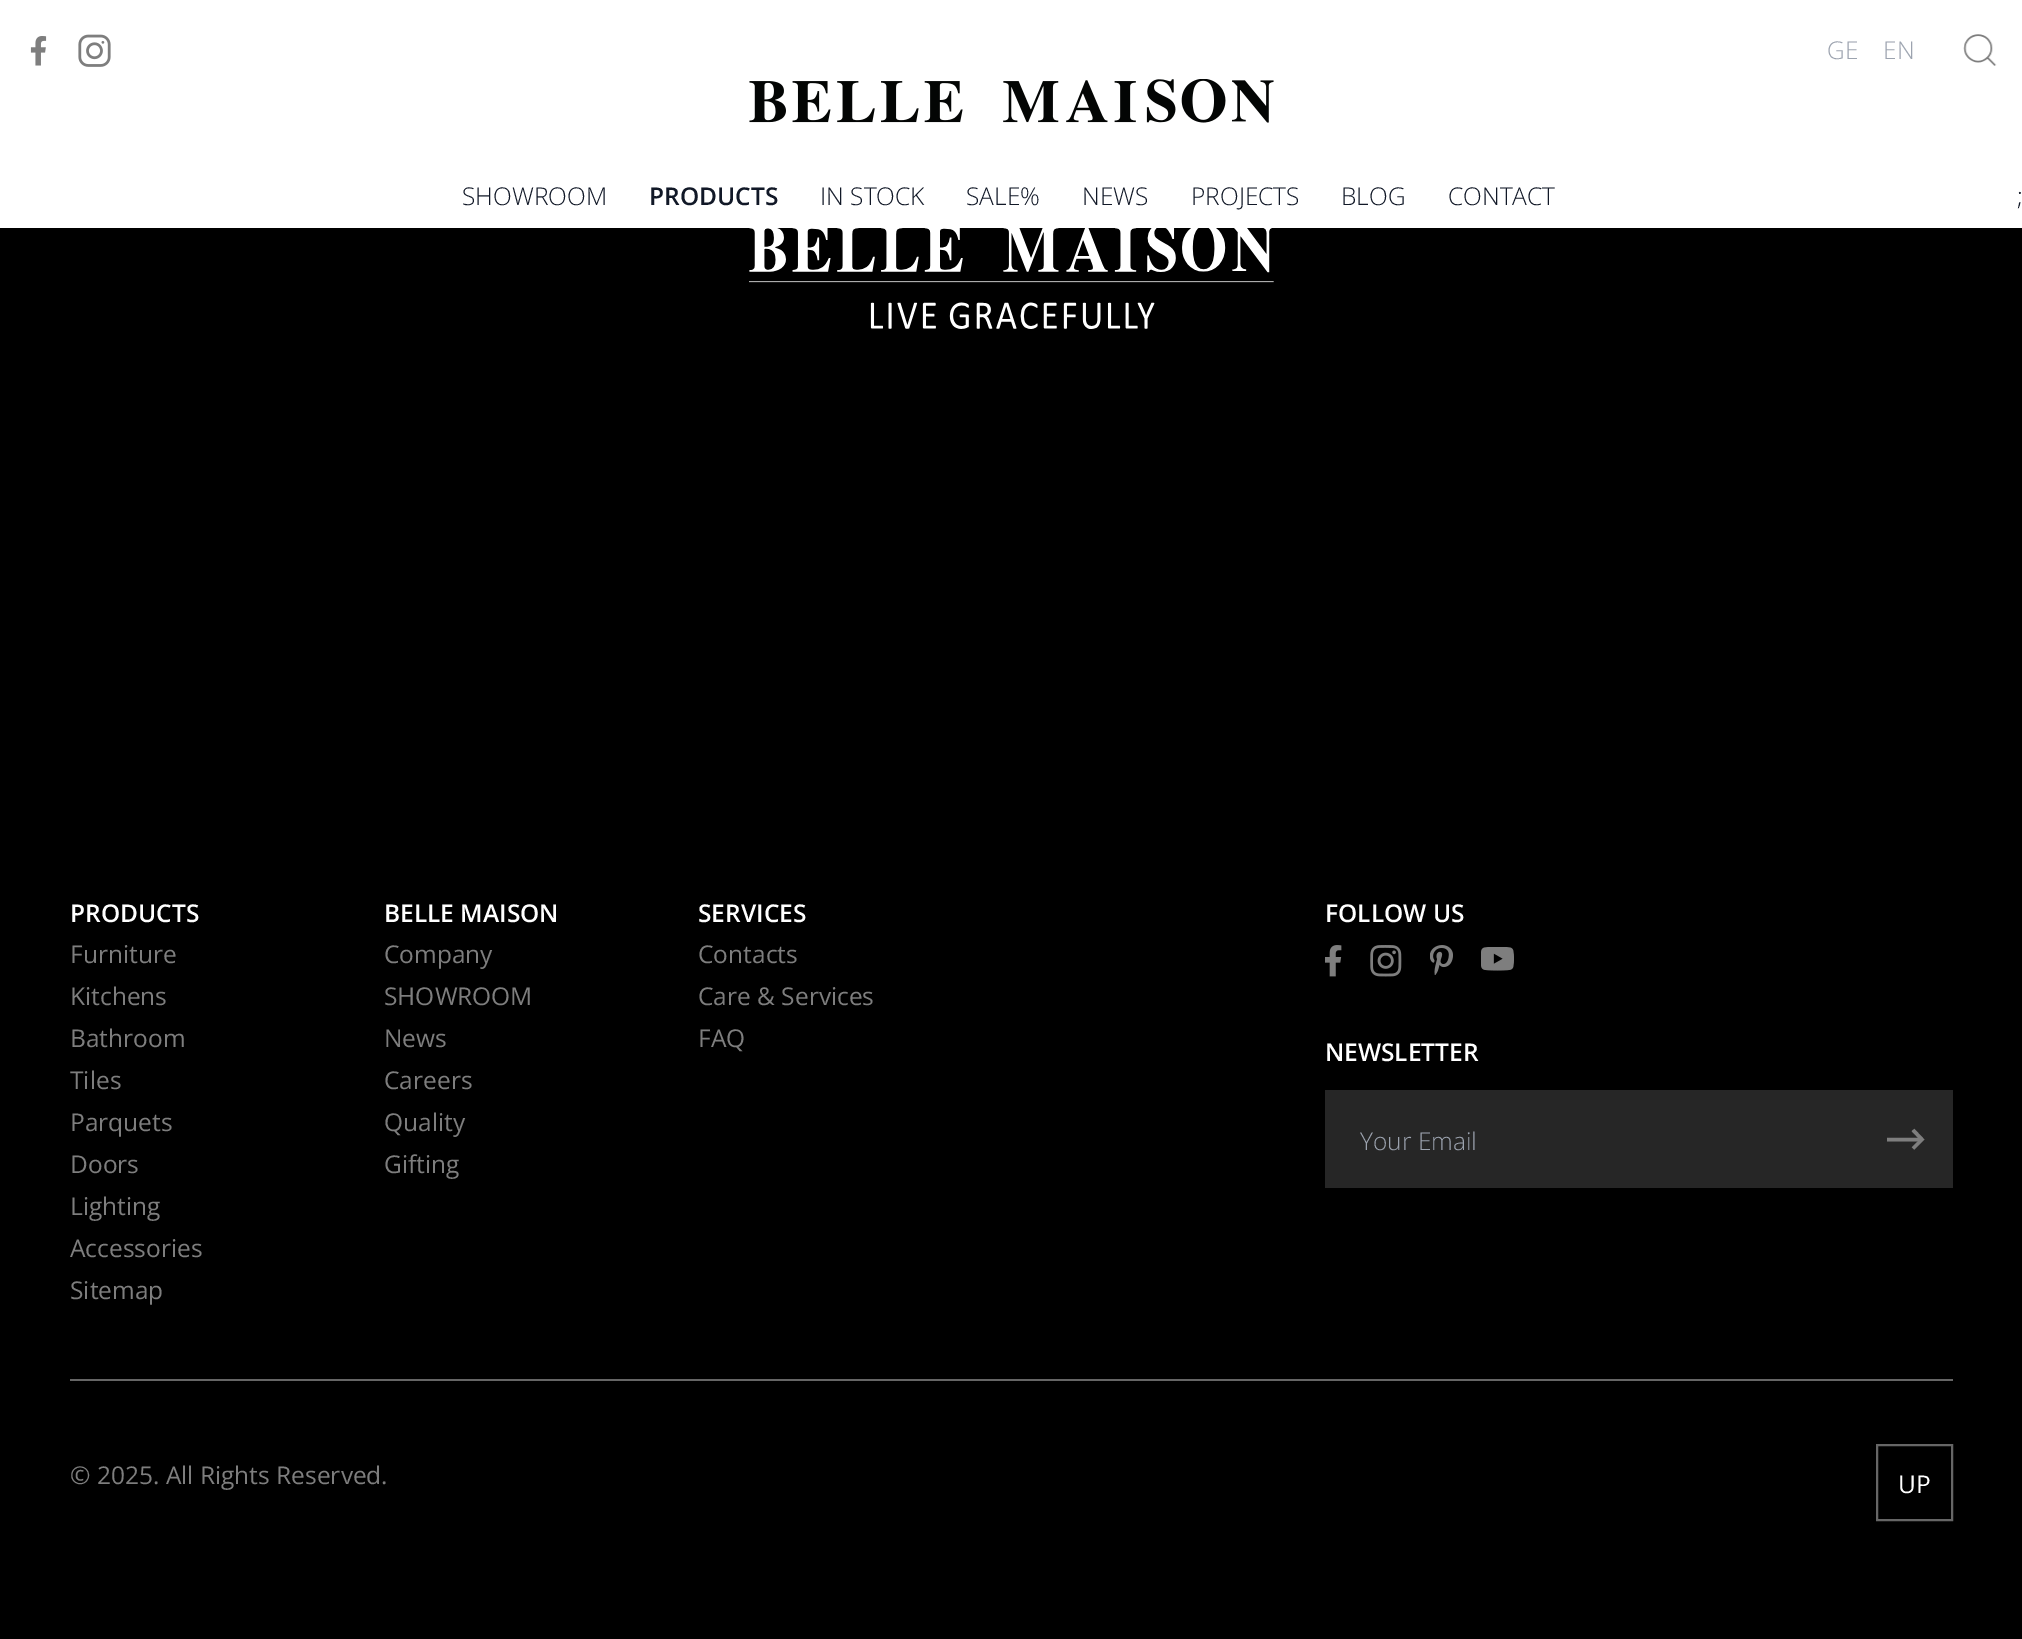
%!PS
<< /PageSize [2022 1639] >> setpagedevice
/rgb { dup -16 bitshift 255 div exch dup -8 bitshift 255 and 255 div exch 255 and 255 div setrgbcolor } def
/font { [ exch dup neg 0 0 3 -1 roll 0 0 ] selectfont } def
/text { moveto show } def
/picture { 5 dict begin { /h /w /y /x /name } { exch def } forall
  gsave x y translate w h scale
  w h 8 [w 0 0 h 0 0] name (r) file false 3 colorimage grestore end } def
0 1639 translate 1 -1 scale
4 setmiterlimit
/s1 { /OpenSans-Light 24.5 font 16#9CA3AF rgb } def
/s2 { /OpenSans-Light 24.5 font 16#111827 rgb } def
/s3 { /OpenSans-SemiBold 24.5 font 16#111827 rgb } def
/s4 { /OpenSans-SemiBold 24.5 font 16#FFFFFF rgb } def
/s5 { /OpenSans-Regular 24.5 font 16#7E7E7E rgb } def
/s6 { /OpenSans-Regular 24.5 font 16#FFFFFF rgb } def
16#000000 rgb
0 0 2022 1639 rectfill
16#FFFFFF rgb
0 0 2022 228 rectfill
(pic1.raw) 30 36 17 30 picture
(pic2.raw) 78 34 33 33 picture
s1
(GE) 1827 59 text
(EN) 1883 59 text
(pic3.raw) 1963 34 34 32 picture
(pic4.raw) 749 79 525 44 picture
s2
(SHOWROOM) 462 205 text
s3
(PRODUCTS) 649 205 text
s2
(IN STOCK) 820 205 text
(SALE%) 966 205 text
(NEWS) 1082 205 text
(PROJECTS) 1191 205 text
(BLOG) 1341 205 text
(CONTACT) 1448 205 text
(;) 2017 205 text
(pic5.raw) 749 228 525 101 picture
s4
(PRODUCTS) 70 922 text
s5
(Furniture) 70 963 text
(Kitchens) 70 1005 text
(Bathroom) 70 1047 text
(Tiles) 70 1089 text
(Parquets) 70 1131 text
(Doors) 70 1173 text
(Lighting) 70 1215 text
(Accessories) 70 1257 text
(Sitemap) 70 1299 text
s4
(BELLE MAISON) 384 922 text
s5
(Company) 384 963 text
(SHOWROOM) 384 1005 text
(News) 384 1047 text
(Careers) 384 1089 text
(Quality) 384 1131 text
(Gifting) 384 1173 text
s4
(SERVICES) 698 922 text
s5
(Contacts) 698 963 text
(Care & Services) 698 1005 text
(FAQ) 698 1047 text
s4
(FOLLOW US) 1325 922 text
(pic6.raw) 1325 945 17 32 picture
(pic7.raw) 1370 945 32 32 picture
(pic8.raw) 1430 945 23 30 picture
(pic9.raw) 1481 947 33 24 picture
(NEWSLETTER) 1325 1061 text
16#262626 rgb
1325 1090 628 98 rectfill
s1
(Your Email) 1360 1150 text
gsave
1887 1129 38 21 rectclip
16#7E7E7E rgb
3.5 setlinewidth
1886.5 1139.5 moveto 1920.5 1139.5 lineto stroke
grestore
16#7E7E7E rgb
3.5 setlinewidth
1913 1130 moveto 1922 1139.5 lineto 1913 1148.5 lineto stroke
16#666666 rgb
70 1379 1883 2 rectfill
s5
(© 2025. All Rights Reserved.) 70 1484 text
16#666666 rgb
2 setlinewidth
1877 1445 75 75 rectstroke
s6
(UP) 1898 1493 text
showpage
